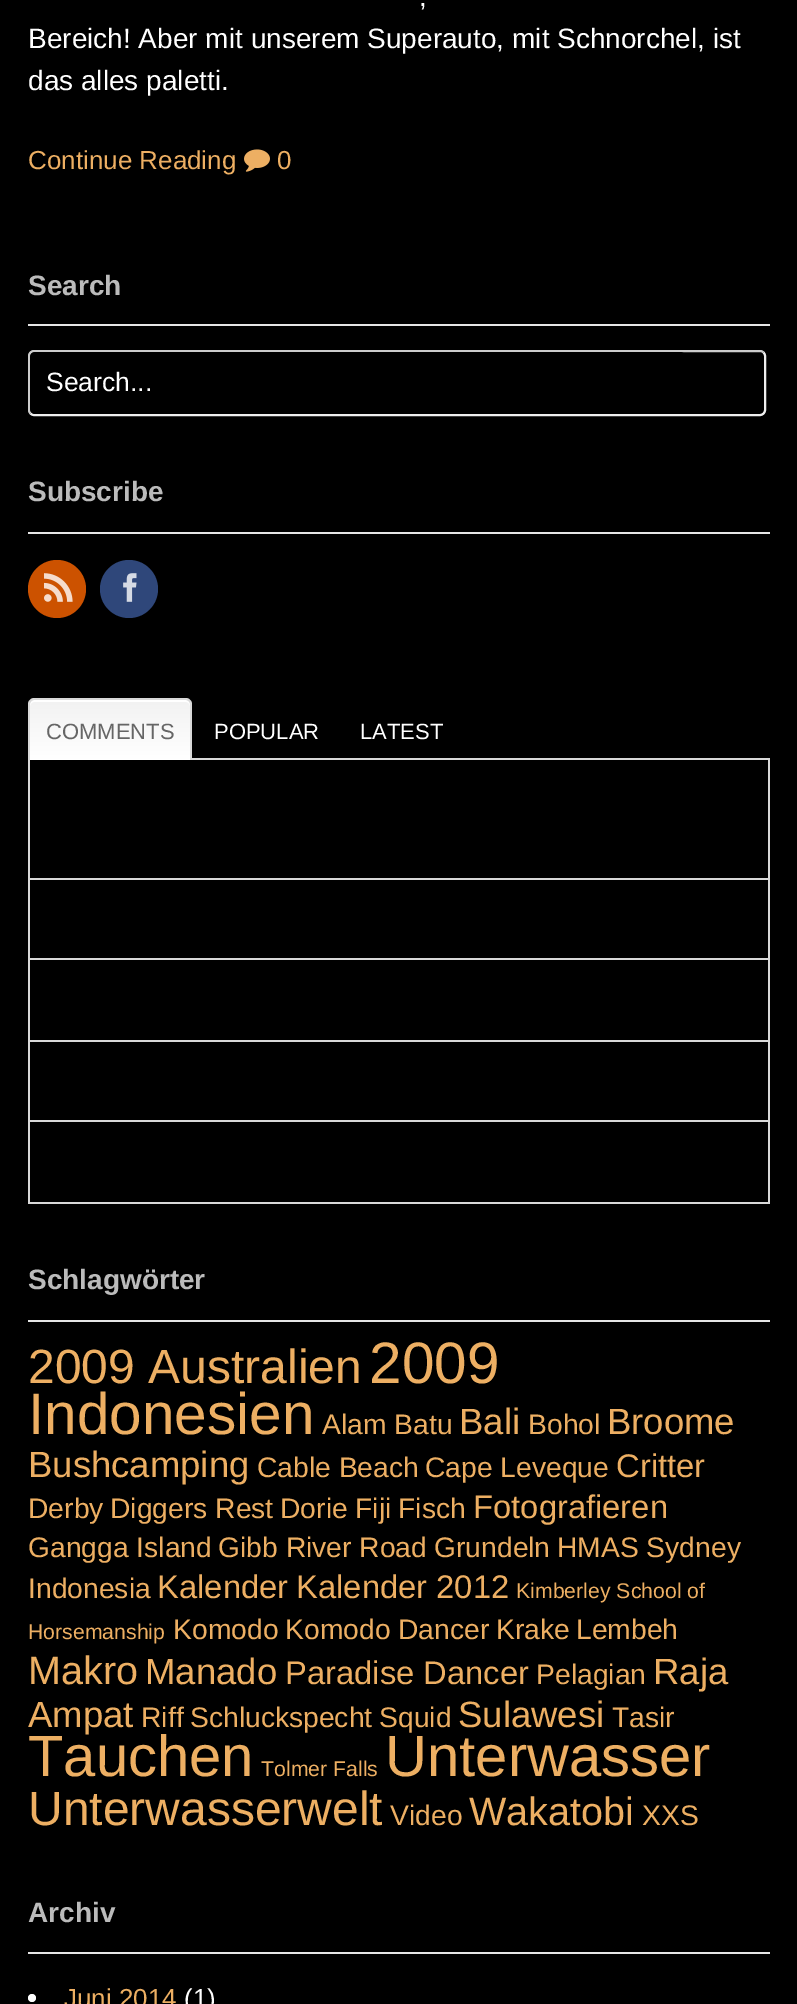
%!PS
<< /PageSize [797 2004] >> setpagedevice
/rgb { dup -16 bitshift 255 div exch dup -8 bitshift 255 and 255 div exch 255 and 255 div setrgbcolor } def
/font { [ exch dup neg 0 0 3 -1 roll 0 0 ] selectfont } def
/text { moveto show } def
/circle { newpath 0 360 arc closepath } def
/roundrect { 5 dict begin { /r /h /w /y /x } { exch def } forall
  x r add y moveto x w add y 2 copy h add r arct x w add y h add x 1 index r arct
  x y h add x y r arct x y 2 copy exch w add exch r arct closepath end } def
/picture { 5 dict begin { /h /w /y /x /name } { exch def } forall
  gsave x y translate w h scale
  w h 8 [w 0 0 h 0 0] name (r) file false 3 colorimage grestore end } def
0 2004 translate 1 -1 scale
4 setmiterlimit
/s1 { /LiberationSans-Regular 28 font 16#FFFFFF rgb } def
/s2 { /LiberationSans-Regular 26 font 16#EDAF63 rgb } def
/s3 { /LiberationSans-Bold 28 font 16#BBBBBB rgb } def
/s4 { /LiberationSans-Regular 26.5 font 16#FFFFFF rgb } def
/s5 { /LiberationSans-Regular 22 font 16#666666 rgb } def
/s6 { /LiberationSans-Regular 22 font 16#FFFFFF rgb } def
/s7 { /LiberationSans-Regular 48 font 16#EDAF63 rgb } def
/s8 { /LiberationSans-Regular 58.5 font 16#EDAF63 rgb } def
/s9 { /LiberationSans-Regular 28.25 font 16#EDAF63 rgb } def
/s10 { /LiberationSans-Regular 36.5 font 16#EDAF63 rgb } def
/s11 { /LiberationSans-Regular 32.75 font 16#EDAF63 rgb } def
/s12 { /LiberationSans-Regular 21.25 font 16#EDAF63 rgb } def
/s13 { /LiberationSans-Regular 39.5 font 16#EDAF63 rgb } def
/s14 { /LiberationSans-Regular 58 font 16#EDAF63 rgb } def
/s15 { /LiberationSans-Regular 26 font 16#FFFFFF rgb } def
16#000000 rgb
0 0 797 2004 rectfill
s1
(,) 419 6 text
(Bereich! Aber mit unserem Superauto, mit Schnorchel, ist) 28 48 text
(das alles paletti.) 28 90 text
s2
(Continue Reading) 28 169 text
(pic1.raw) 244 149 26 23 picture
(0) 277 169 text
16#E6E6E6 rgb
28 324 742 2 rectfill
s3
(Search) 28 295 text
16#EFEFEF rgb
2 setlinewidth
763.5 352.5 moveto 764.5 353.5 765 354.5 765 356 curveto 765 410 lineto 765 411.5 764.5 412.5 763.5 413.5 curveto 762.5 414.5 761.5 415 760 415 curveto 34 415 lineto 32.5 415 31.5 414.5 30.5 413.5 curveto stroke
16#CCCCCC rgb
30.5 413.5 moveto 29.5 412.5 29 411.5 29 410 curveto 29 356 lineto 29 354.5 29.5 353.5 30.5 352.5 curveto 31.5 351.5 32.5 351 34 351 curveto 760 351 lineto 761.5 351 762.5 351.5 763.5 352.5 curveto stroke
16#000000 rgb
30 352 656 62 6 roundrect fill
s4
(Search...) 46 391 text
16#E6E6E6 rgb
28 532 742 2 rectfill
s3
(Subscribe) 28 501 text
16#CC5200 rgb
57 589 29 circle fill
(pic2.raw) 44 573 29 29 picture
16#2F477A rgb
129 589 29 circle fill
(pic3.raw) 123 573 14 29 picture
gsave 34 700 moveto 186 700 lineto 188 700 190 702 190 704 curveto 190 760 lineto 30 760 lineto 30 704 lineto 30 702 32 700 34 700 curveto closepath clip newpath
<< /ShadingType 2 /ColorSpace /DeviceRGB /Coords [110 700 110 760] /Extend [true true] /Function << /FunctionType 2 /Domain [0 1] /C0 [0.949 0.949 0.949] /C1 [1 1 1] /N 1 >> >> shfill grestore
16#FFFFFF rgb
34 702 moveto 186 702 lineto 188 702 190 704 190 706 curveto 190 704 lineto 190 702 188 700 186 700 curveto 34 700 lineto 32 700 30 702 30 704 curveto 30 706 lineto 30 704 32 702 34 702 curveto closepath fill
16#D9D9D9 rgb
34 698 moveto 186 698 lineto 189 698 192 701 192 704 curveto 192 760 lineto 28 760 lineto 28 704 lineto 28 701 31 698 34 698 curveto closepath 34 700 moveto 186 700 lineto 188 700 190 702 190 704 curveto 190 760 lineto 30 760 lineto 30 704 lineto 30 702 32 700 34 700 curveto closepath eofill
s5
(COMMENTS) 46 739 text
s6
(POPULAR) 214 739 text
(LATEST) 360 739 text
16#D9D9D9 rgb
192 758 578 2 rectfill
28 1202 742 2 rectfill
768 760 2 442 rectfill
28 878 742 2 rectfill
28 760 2 120 rectfill
28 958 742 2 rectfill
28 880 2 80 rectfill
28 1040 742 2 rectfill
28 960 2 82 rectfill
28 1120 742 2 rectfill
28 1042 2 160 rectfill
16#E6E6E6 rgb
28 1320 742 2 rectfill
s3
(Schlagwörter) 28 1289 text
s7
(2009 Australien) 28 1383 text
s8
(2009) 369 1383 text
(Indonesien) 28 1434 text
s9
(Alam Batu) 322 1434 text
s10
(Bali) 459 1434 text
s9
(Bohol) 528 1434 text
s10
(Broome) 607 1434 text
(Bushcamping) 28 1477 text
s9
(Cable Beach) 257 1477 text
(Cape Leveque) 425 1477 text
s11
(Critter) 616 1477 text
s9
(Derby) 28 1518 text
(Diggers Rest) 110 1518 text
(Dorie) 280 1518 text
(Fiji) 355 1518 text
(Fisch) 398 1518 text
s11
(Fotografieren) 473 1518 text
s9
(Gangga Island) 28 1557 text
(Gibb River Road) 218 1557 text
(Grundeln) 434 1557 text
(HMAS Sydney) 557 1557 text
(Indonesia) 28 1598 text
s11
(Kalender) 157 1598 text
(Kalender 2012) 296 1598 text
s12
(Kimberley School of) 516 1598 text
(Horsemanship) 28 1639 text
s9
(Komodo) 173 1639 text
(Komodo Dancer) 285 1639 text
(Krake) 496 1639 text
(Lembeh) 576 1639 text
s13
(Makro) 28 1684 text
s10
(Manado) 145 1684 text
s11
(Paradise Dancer) 285 1684 text
s9
(Pelagian) 536 1684 text
s10
(Raja) 653 1684 text
(Ampat) 28 1727 text
s9
(Riff) 141 1727 text
(Schluckspecht) 190 1727 text
(Squid) 379 1727 text
s10
(Sulawesi) 458 1727 text
s9
(Tasir) 612 1727 text
s14
(Tauchen) 28 1776 text
s12
(Tolmer Falls) 261 1776 text
s14
(Unterwasser) 385 1776 text
s7
(Unterwasserwelt) 28 1825 text
s9
(Video) 390 1825 text
s13
(Wakatobi) 469 1825 text
s9
(XXS) 642 1825 text
16#E6E6E6 rgb
28 1952 742 2 rectfill
s3
(Archiv) 28 1922 text
16#FFFFFF rgb
32 1998 4 circle fill
s2
(Juni 2014) 64 2007 text
s15
(\(1\)) 184 2007 text
showpage
